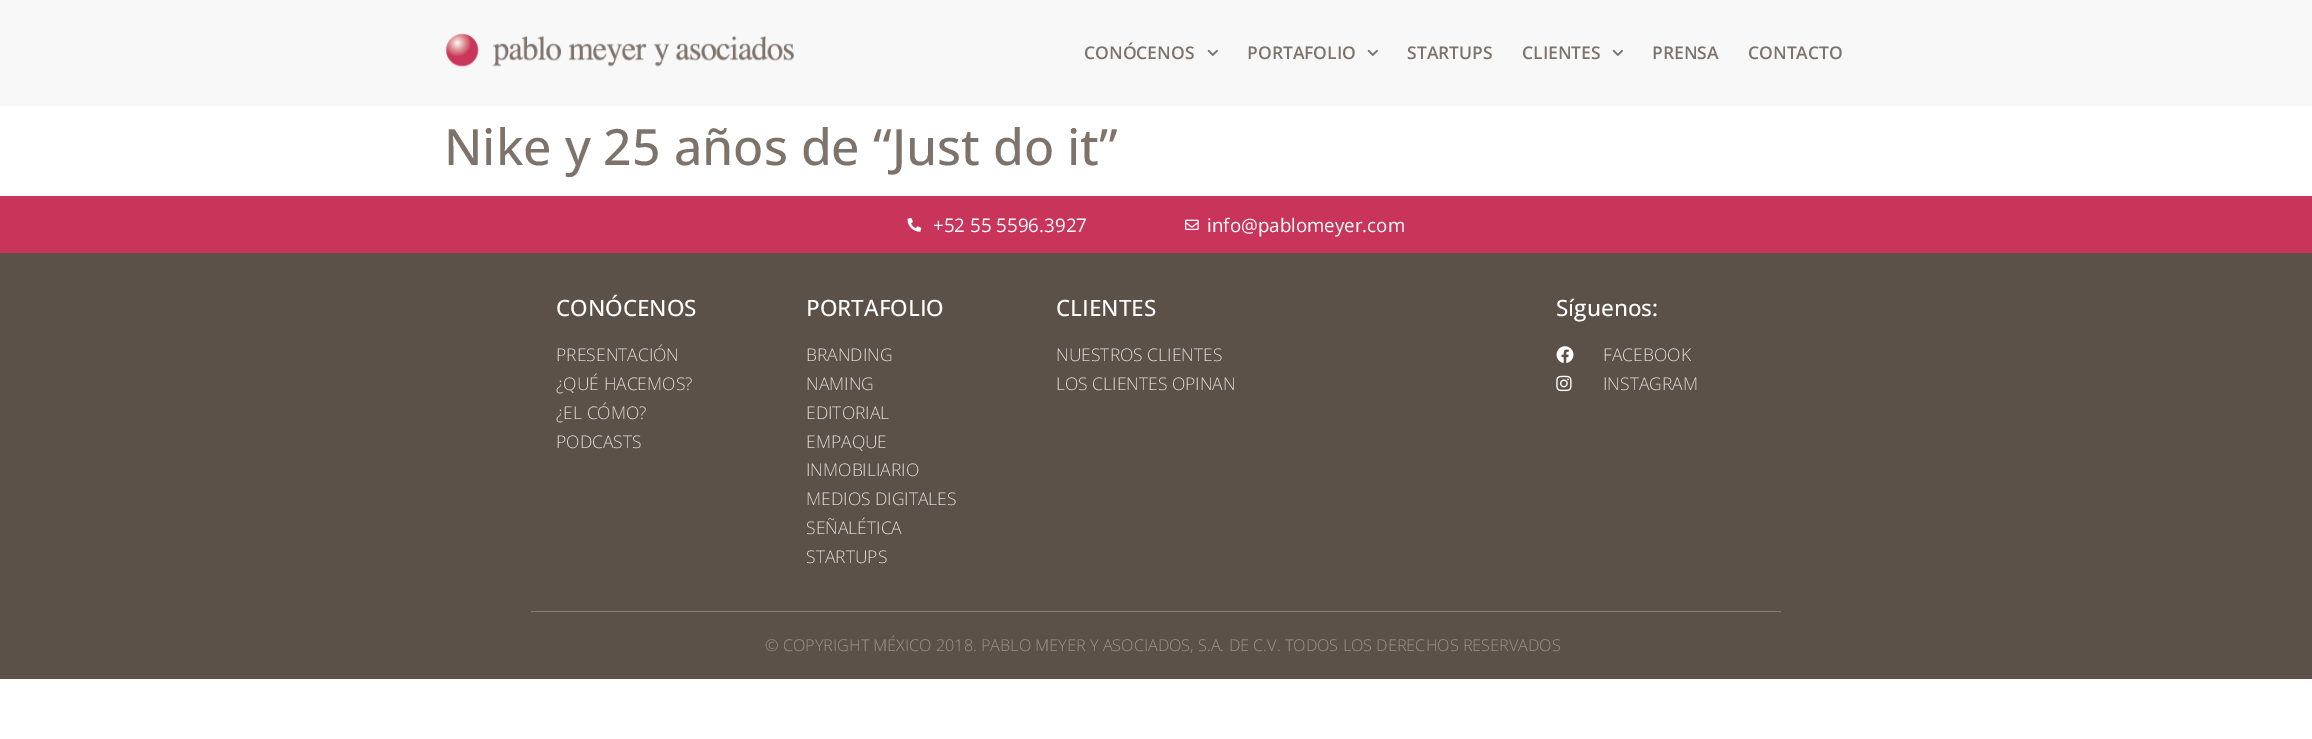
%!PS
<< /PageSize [2312 739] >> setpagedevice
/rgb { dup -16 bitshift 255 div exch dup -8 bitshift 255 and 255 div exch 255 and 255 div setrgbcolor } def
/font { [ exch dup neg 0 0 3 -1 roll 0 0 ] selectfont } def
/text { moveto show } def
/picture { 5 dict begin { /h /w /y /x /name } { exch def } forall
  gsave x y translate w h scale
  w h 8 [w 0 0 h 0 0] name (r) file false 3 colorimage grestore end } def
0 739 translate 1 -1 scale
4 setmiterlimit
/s1 { /OpenSans-SemiBold 17.5 font 16#7E736A rgb } def
/s2 { /OpenSans-Medium 50 font 16#7E736A rgb } def
/s3 { /OpenSans-Regular 18.75 font 16#FFFFFF rgb } def
/s4 { /OpenSans-Medium 22.5 font 16#FFFFFF rgb } def
/s5 { /OpenSans-Light 17.5 font 16#DDDAD9 rgb } def
/s6 { /OpenSans-Light 16.25 font 16#9C958F rgb } def
16#FFFFFF rgb
0 0 2312 739 rectfill
16#F8F8F8 rgb
0 0 2312 106 rectfill
(pic1.raw) 445 33 349 34 picture
s1
(CONÓCENOS) 1084 59 text
(pic2.raw) 1207 49 11 7 picture
(PORTAFOLIO) 1247 59 text
(pic2.raw) 1367 49 11 7 picture
(STARTUPS) 1407 59 text
(CLIENTES) 1522 59 text
(pic2.raw) 1612 49 11 7 picture
(PRENSA) 1652 59 text
(CONTACTO) 1748 59 text
s2
(Nike y 25 años de “Just do it”) 444 165 text
16#C9345B rgb
0 196 2312 57 rectfill
(pic3.raw) 907 218 15 14 picture
s3
(+52 55 5596.3927) 933 232 text
(pic4.raw) 1185 219 14 11 picture
(info@pablomeyer.com) 1207 232 text
16#5C5148 rgb
0 253 2312 426 rectfill
s4
(CONÓCENOS) 556 316 text
s5
(PRESENTACIÓN) 556 361 text
(¿QUÉ HACEMOS?) 556 390 text
(¿EL CÓMO?) 556 419 text
(PODCASTS) 556 448 text
s4
(PORTAFOLIO) 806 316 text
s5
(BRANDING) 806 361 text
(NAMING) 806 390 text
(EDITORIAL) 806 419 text
(EMPAQUE) 806 448 text
(INMOBILIARIO) 806 476 text
(MEDIOS DIGITALES) 806 505 text
(SEÑALÉTICA) 806 534 text
(STARTUPS) 806 563 text
s4
(CLIENTES) 1056 316 text
s5
(NUESTROS CLIENTES) 1056 361 text
(LOS CLIENTES OPINAN) 1056 390 text
s4
(Síguenos:) 1556 316 text
(pic5.raw) 1556 346 18 17 picture
s5
(FACEBOOK) 1603 361 text
(pic6.raw) 1556 375 16 17 picture
(INSTAGRAM) 1603 390 text
16#857D76 rgb
531 611 1250 1 rectfill
s6
(© COPYRIGHT MÉXICO 2018. PABLO MEYER Y ASOCIADOS, S.A. DE C.V. TODOS LOS DERECHOS RESERVADOS) 765 651 text
showpage
